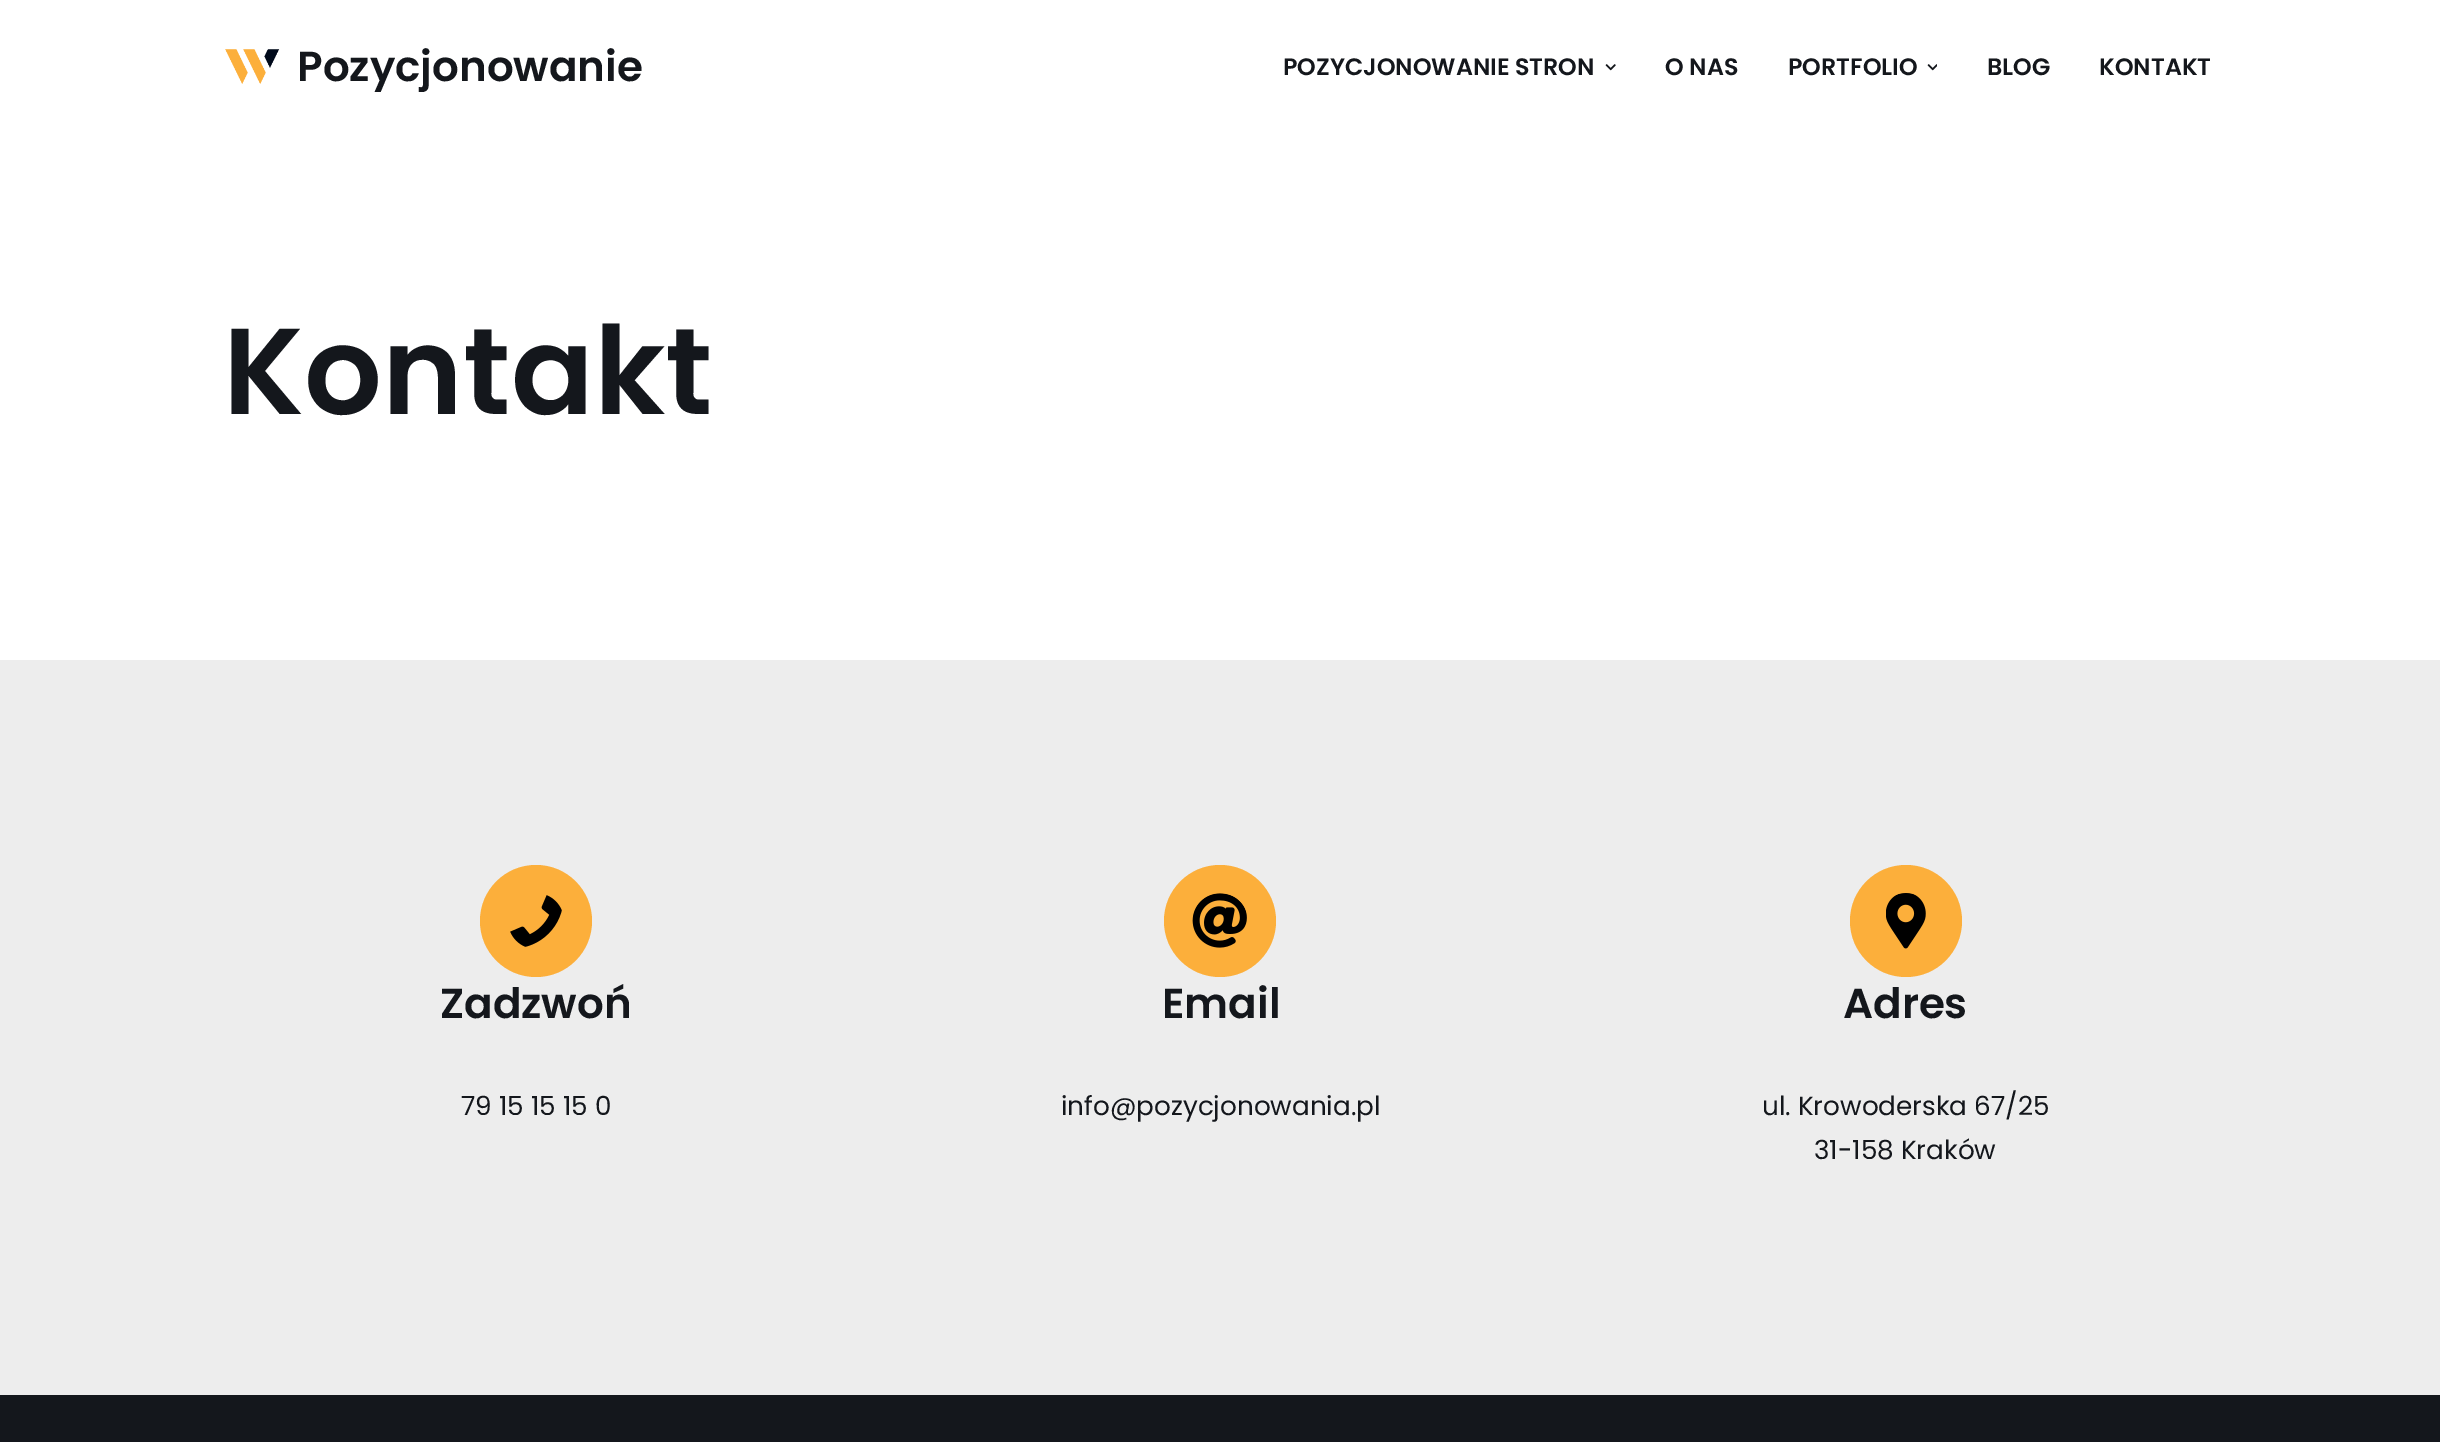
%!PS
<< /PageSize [2440 1442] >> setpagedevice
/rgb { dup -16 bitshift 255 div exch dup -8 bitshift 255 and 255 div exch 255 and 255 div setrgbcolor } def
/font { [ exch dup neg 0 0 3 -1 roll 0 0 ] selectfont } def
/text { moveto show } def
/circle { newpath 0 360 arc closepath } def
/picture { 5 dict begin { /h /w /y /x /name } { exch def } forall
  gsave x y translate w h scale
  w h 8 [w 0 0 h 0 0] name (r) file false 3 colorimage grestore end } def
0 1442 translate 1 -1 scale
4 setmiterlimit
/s1 { /Poppins-SemiBold 42 font 16#14171C rgb } def
/s2 { /Poppins-SemiBold 23.75 font 16#14171C rgb } def
/s3 { /Poppins-SemiBold 122.5 font 16#14171C rgb } def
/s4 { /Poppins-Regular 26.25 font 16#14171C rgb } def
16#FFFFFF rgb
0 0 2440 1442 rectfill
(pic1.raw) 225 49 55 35 picture
s1
(Pozycjonowanie) 297 81 text
s2
(POZYCJONOWANIE STRON) 1283 75 text
(pic2.raw) 1605 64 11 7 picture
(O NAS) 1665 75 text
(PORTFOLIO) 1788 75 text
(pic3.raw) 1927 64 10 7 picture
(BLOG) 1987 75 text
(KONTAKT) 2099 75 text
s3
(Kontakt) 223 414 text
16#EDEDED rgb
0 660 2440 735 rectfill
16#FCAF3B rgb
536 921 56 circle fill
(pic4.raw) 510 895 52 52 picture
s1
(Zadzwoń) 440 1018 text
s4
(79 15 15 15 0) 461 1115 text
16#FCAF3B rgb
1220 921 56 circle fill
(pic5.raw) 1192 893 55 55 picture
s1
(Email) 1162 1018 text
s4
(info@pozycjonowania.pl) 1061 1115 text
16#FCAF3B rgb
1906 921 56 circle fill
(pic6.raw) 1886 893 40 56 picture
s1
(Adres) 1843 1018 text
s4
(ul. Krowoderska 67/25) 1762 1115 text
(31-158 Kraków) 1814 1159 text
0 1395 2440 47 rectfill
showpage
